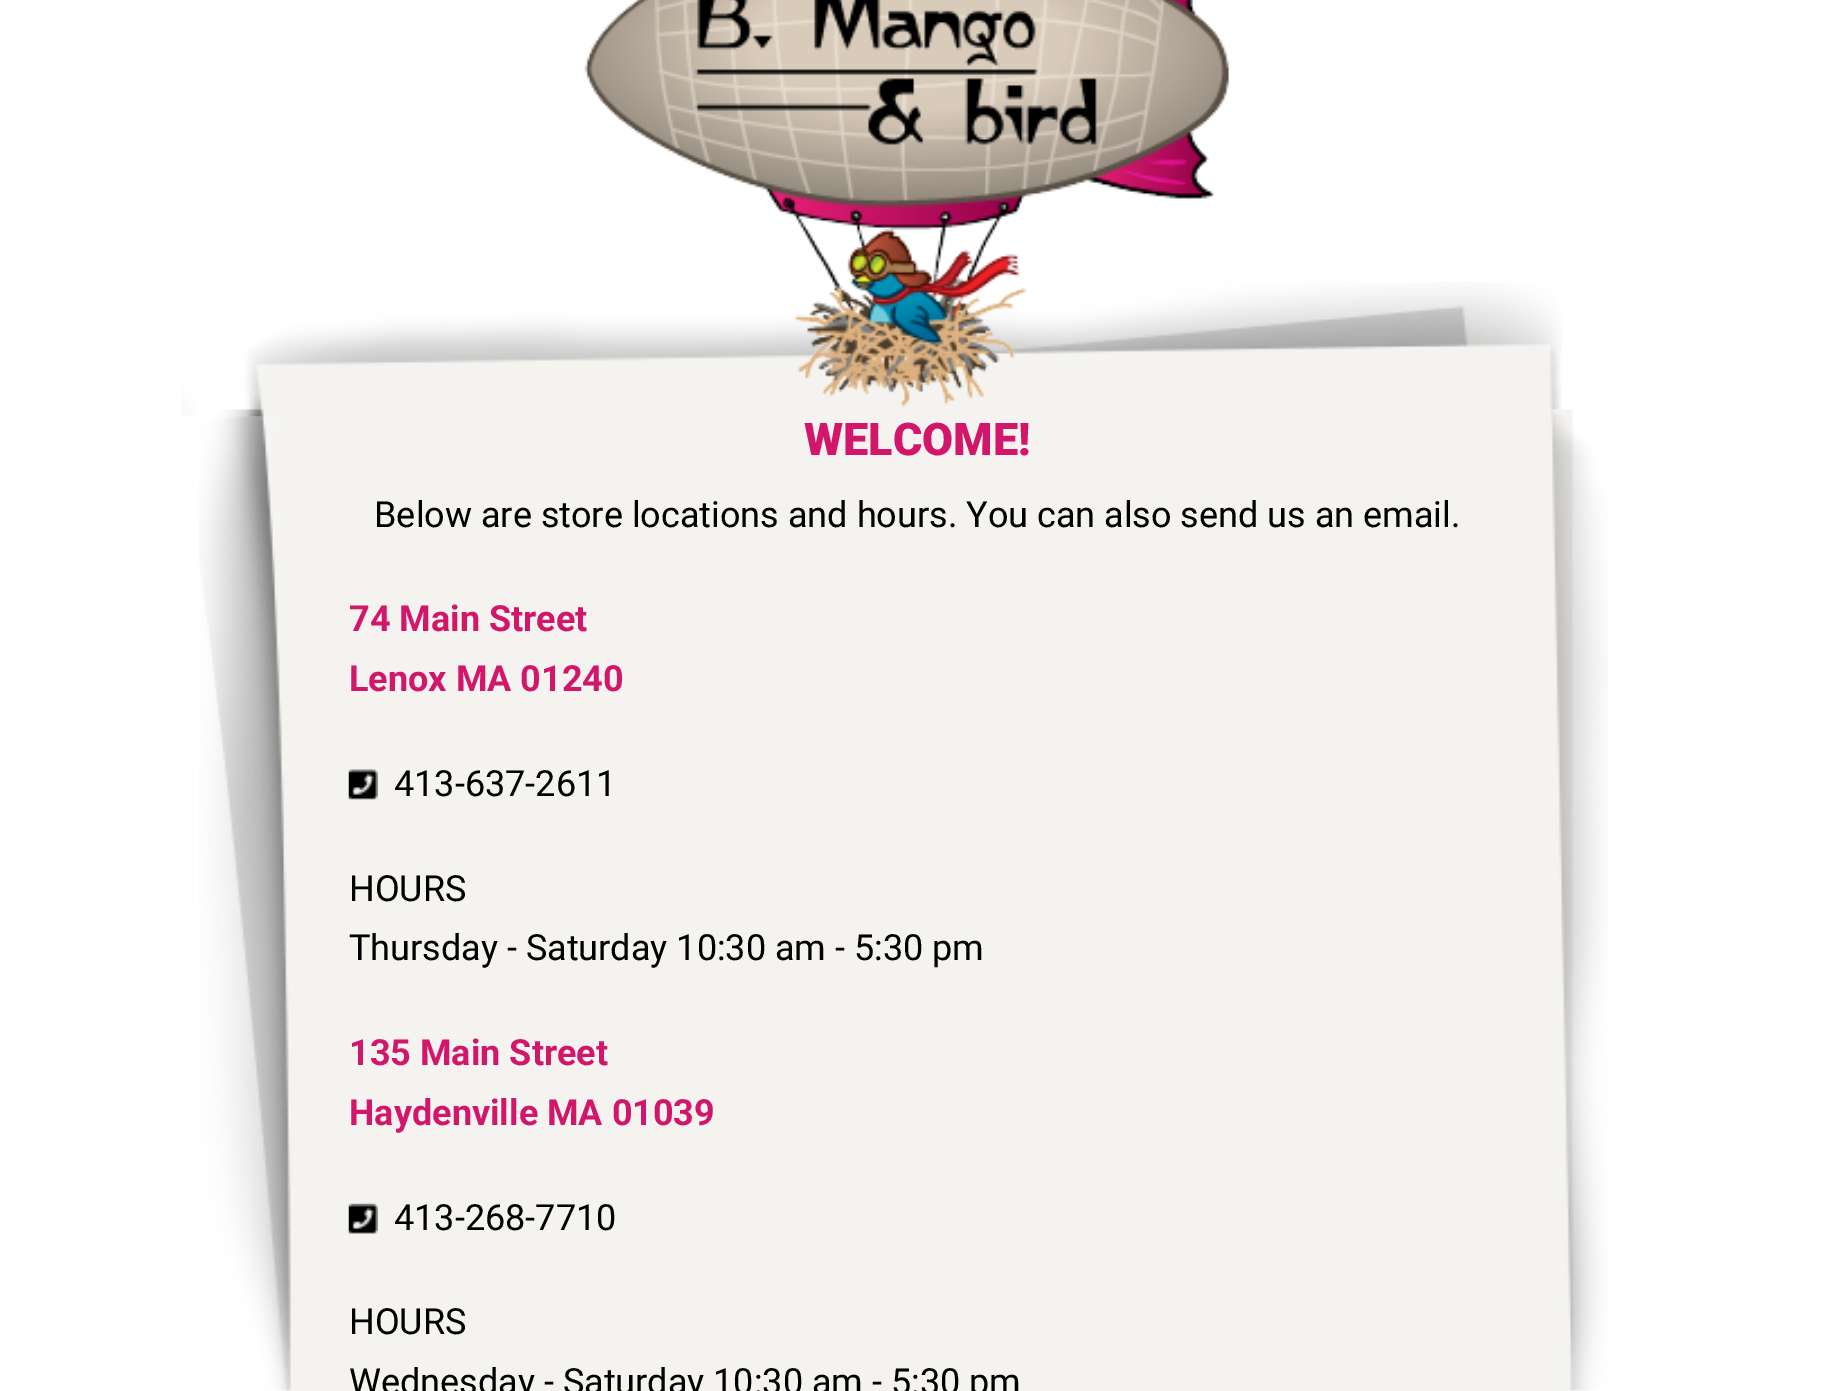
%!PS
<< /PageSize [1824 1391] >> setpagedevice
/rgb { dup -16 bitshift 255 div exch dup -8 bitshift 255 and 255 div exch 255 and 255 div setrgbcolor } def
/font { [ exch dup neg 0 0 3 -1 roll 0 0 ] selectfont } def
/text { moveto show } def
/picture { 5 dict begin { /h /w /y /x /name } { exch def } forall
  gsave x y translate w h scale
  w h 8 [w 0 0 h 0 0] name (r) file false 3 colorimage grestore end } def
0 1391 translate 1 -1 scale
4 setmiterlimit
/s1 { /Roboto-Black 45 font 16#D2176B rgb } def
/s2 { /Roboto-Regular 36 font 16#000000 rgb } def
/s3 { /Roboto-Bold 36 font 16#D2176B rgb } def
16#FFFFFF rgb
0 0 1824 1391 rectfill
(pic2.raw) 181 282 1381 135 picture
(pic1.raw) 584 0 646 408 picture
(pic3.raw) 290 409 1283 982 picture
(pic4.raw) 199 409 92 982 picture
(pic5.raw) 1550 410 58 981 picture
s1
(WELCOME!) 804 455 text
s2
(Below are store locations and hours. You can also send us an email.) 374 527 text
s3
(74 Main Street) 349 631 text
(Lenox MA 01240) 349 691 text
(pic6.raw) 348 769 30 31 picture
s2
(413-637-2611) 394 796 text
(HOURS) 349 901 text
(Thursday - Saturday 10:30 am - 5:30 pm) 349 960 text
s3
(135 Main Street) 349 1065 text
(Haydenville MA 01039) 349 1125 text
(pic7.raw) 348 1203 30 31 picture
s2
(413-268-7710) 394 1230 text
(HOURS) 349 1334 text
(Wednesday - Saturday 10:30 am - 5:30 pm) 349 1394 text
showpage
